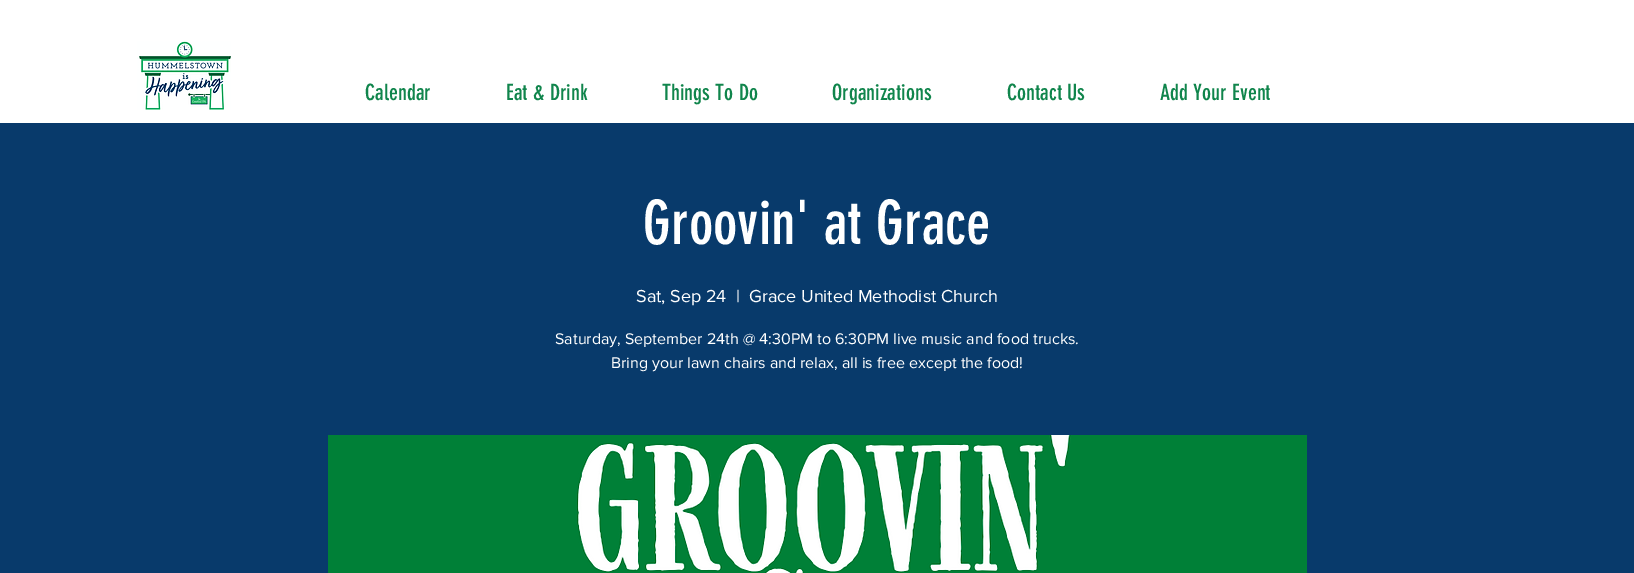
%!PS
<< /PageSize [1634 573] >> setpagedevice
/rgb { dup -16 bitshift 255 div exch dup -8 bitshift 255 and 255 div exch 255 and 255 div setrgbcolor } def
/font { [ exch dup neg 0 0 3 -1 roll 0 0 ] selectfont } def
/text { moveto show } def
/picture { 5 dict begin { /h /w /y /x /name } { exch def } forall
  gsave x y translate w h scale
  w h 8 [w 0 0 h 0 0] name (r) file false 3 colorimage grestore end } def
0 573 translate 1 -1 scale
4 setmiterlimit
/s1 { /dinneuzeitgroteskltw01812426-Regular 22 font 16#10854C rgb } def
/s2 { /dinneuzeitgroteskltw01812426-Regular 60 font 16#FFFFFF rgb } def
/s3 { /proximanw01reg-Regular 18 font 16#FFFFFF rgb } def
/s4 { /proximanw01reg-Regular 16 font 16#FFFFFF rgb } def
16#FFFFFF rgb
0 0 1634 573 rectfill
(pic1.raw) 137 41 94 69 picture
s1
(Calendar) 365 100 text
(Eat & Drink) 506 100 text
(Things To Do) 662 100 text
(Organizations) 832 100 text
(Contact Us) 1007 100 text
(Add Your Event) 1160 100 text
16#083A6B rgb
0 123 1634 450 rectfill
s2
(Groovin' at Grace) 643 244 text
s3
(Sat, Sep 24) 636 302 text
(|) 736 302 text
(Grace United Methodist Church) 749 302 text
s4
(Saturday, September 24th @ 4:30PM to 6:30PM live music and food trucks.) 555 344 text
(Bring your lawn chairs and relax, all is free except the food!) 611 368 text
(pic2.raw) 328 435 979 138 picture
showpage
